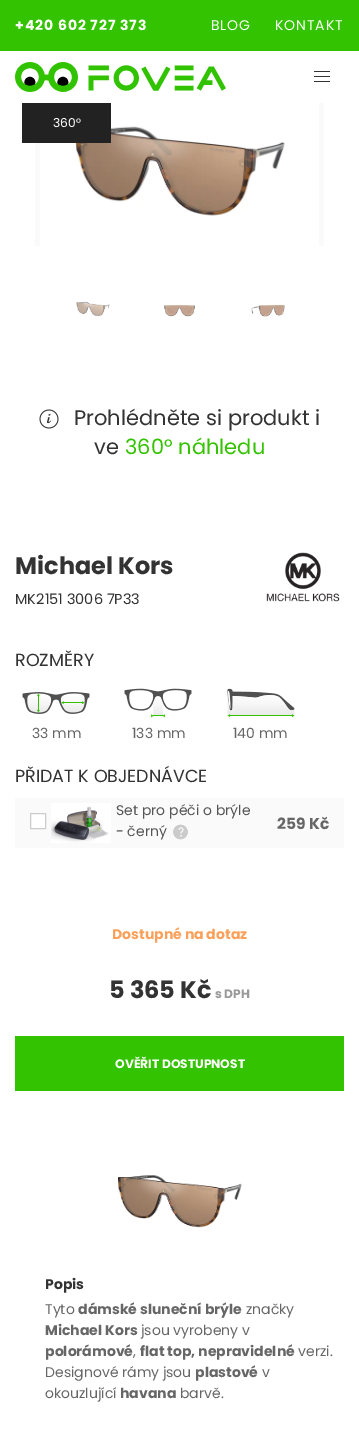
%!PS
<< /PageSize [359 1445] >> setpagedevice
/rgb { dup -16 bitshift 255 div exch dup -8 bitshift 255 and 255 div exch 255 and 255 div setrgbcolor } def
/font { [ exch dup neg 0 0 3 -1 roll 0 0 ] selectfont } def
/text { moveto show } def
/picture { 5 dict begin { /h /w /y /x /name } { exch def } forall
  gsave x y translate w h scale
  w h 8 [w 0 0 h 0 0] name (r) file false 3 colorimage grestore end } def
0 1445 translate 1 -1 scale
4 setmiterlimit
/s1 { /Poppins-Regular 12.25 font 16#FFFFFF rgb } def
/s2 { /Poppins-Regular 21 font 16#333333 rgb } def
/s3 { /Poppins-Regular 21 font 16#33C300 rgb } def
/s4 { /Poppins-Bold 24 font 16#333333 rgb } def
/s5 { /Poppins-Regular 14.5 font 16#333333 rgb } def
/s6 { /Poppins-Regular 17.5 font 16#333333 rgb } def
/s7 { /Poppins-Regular 14 font 16#666666 rgb } def
/s8 { /Poppins-Regular 14 font 16#555555 rgb } def
/s9 { /Poppins-Bold 15.5 font 16#666666 rgb } def
/s10 { /Poppins-Bold 14 font 16#FAA05A rgb } def
/s11 { /Poppins-Bold 12.25 font 16#999999 rgb } def
/s12 { /Poppins-Bold 12.25 font 16#FFFFFF rgb } def
/s13 { /Poppins-Bold 14 font 16#333333 rgb } def
/s14 { /Poppins-Bold 14 font 16#666666 rgb } def
16#FFFFFF rgb
0 0 359 1445 rectfill
16#33C300 rgb
0 0 359 51 rectfill
/Poppins-Bold 14 font
16#FFFFFF rgb
15 30 moveto 0.9 0 (+420 602 727 373) ashow
/Poppins-Regular 14 font
211 30 moveto 0.9 0 (BLOG) ashow
275 30 moveto 0.9 0 (KONTAKT) ashow
(pic1.raw) 15 62 211 30 picture
16#333333 rgb
314 71 16 1 rectfill
314 76 16 1 rectfill
314 81 16 1 rectfill
16#FAFAFA rgb
35 103 289 143 rectfill
(pic2.raw) 40 103 279 143 picture
16#222222 rgb
22 103 89 40 rectfill
s1
(360°) 53 127 text
(pic3.raw) 76 301 34 15 picture
(pic4.raw) 164 305 31 12 picture
(pic5.raw) 251 304 34 13 picture
(pic6.raw) 39 409 20 20 picture
s2
(Prohlédněte si produkt i) 74 425 text
(ve) 94 454 text
s3
(360° náhledu) 125 454 text
s4
(Michael Kors) 15 574 text
s5
(MK2151 3006 7P33) 15 604 text
(pic7.raw) 266 552 74 50 picture
s6
(ROZMĚRY) 15 666 text
(pic8.raw) 22 692 68 22 picture
s7
(33 mm) 32 738 text
(pic9.raw) 124 688 68 30 picture
(133 mm) 132 738 text
(pic10.raw) 227 688 68 29 picture
(140 mm) 233 738 text
s6
(PŘIDAT K OBJEDNÁVCE) 15 782 text
16#FAFAFA rgb
15 798 329 50 rectfill
16#FFFFFF rgb
30.5 813.5 moveto 45.5 813.5 lineto 45.5 828.5 lineto 30.5 828.5 lineto closepath gsave fill grestore
16#CCCCCC rgb
stroke
(pic11.raw) 51 803 60 40 picture
s8
(Set pro péči o brýle) 116 815 text
(- černý) 116 836 text
(pic12.raw) 173 824 15 16 picture
s9
(259 Kč) 277 829 text
s10
(Dostupné na dotaz) 112 939 text
s4
(5 365 Kč) 109 998 text
s11
(s DPH) 215 998 text
16#33C300 rgb
15 1036 329 55 rectfill
s12
(OVĚŘIT DOSTUPNOST) 115 1068 text
(pic13.raw) 118 1175 124 53 picture
s13
(Popis) 45 1289 text
s7
(Tyto) 45 1314 text
s14
(dámské sluneční brýle) 78 1314 text
s7
(značky) 246 1314 text
s14
(Michael Kors) 45 1335 text
s7
(jsou vyrobeny v) 141 1335 text
s14
(polorámové) 45 1356 text
s7
(,) 133 1356 text
s14
(flat top, nepravidelné) 140 1356 text
s7
(verzi.) 298 1356 text
(Designové rámy jsou) 45 1377 text
s14
(plastové) 195 1377 text
s7
(v) 262 1377 text
(okouzlující) 45 1398 text
s14
(havana) 120 1398 text
s7
(barvě.) 180 1398 text
showpage
